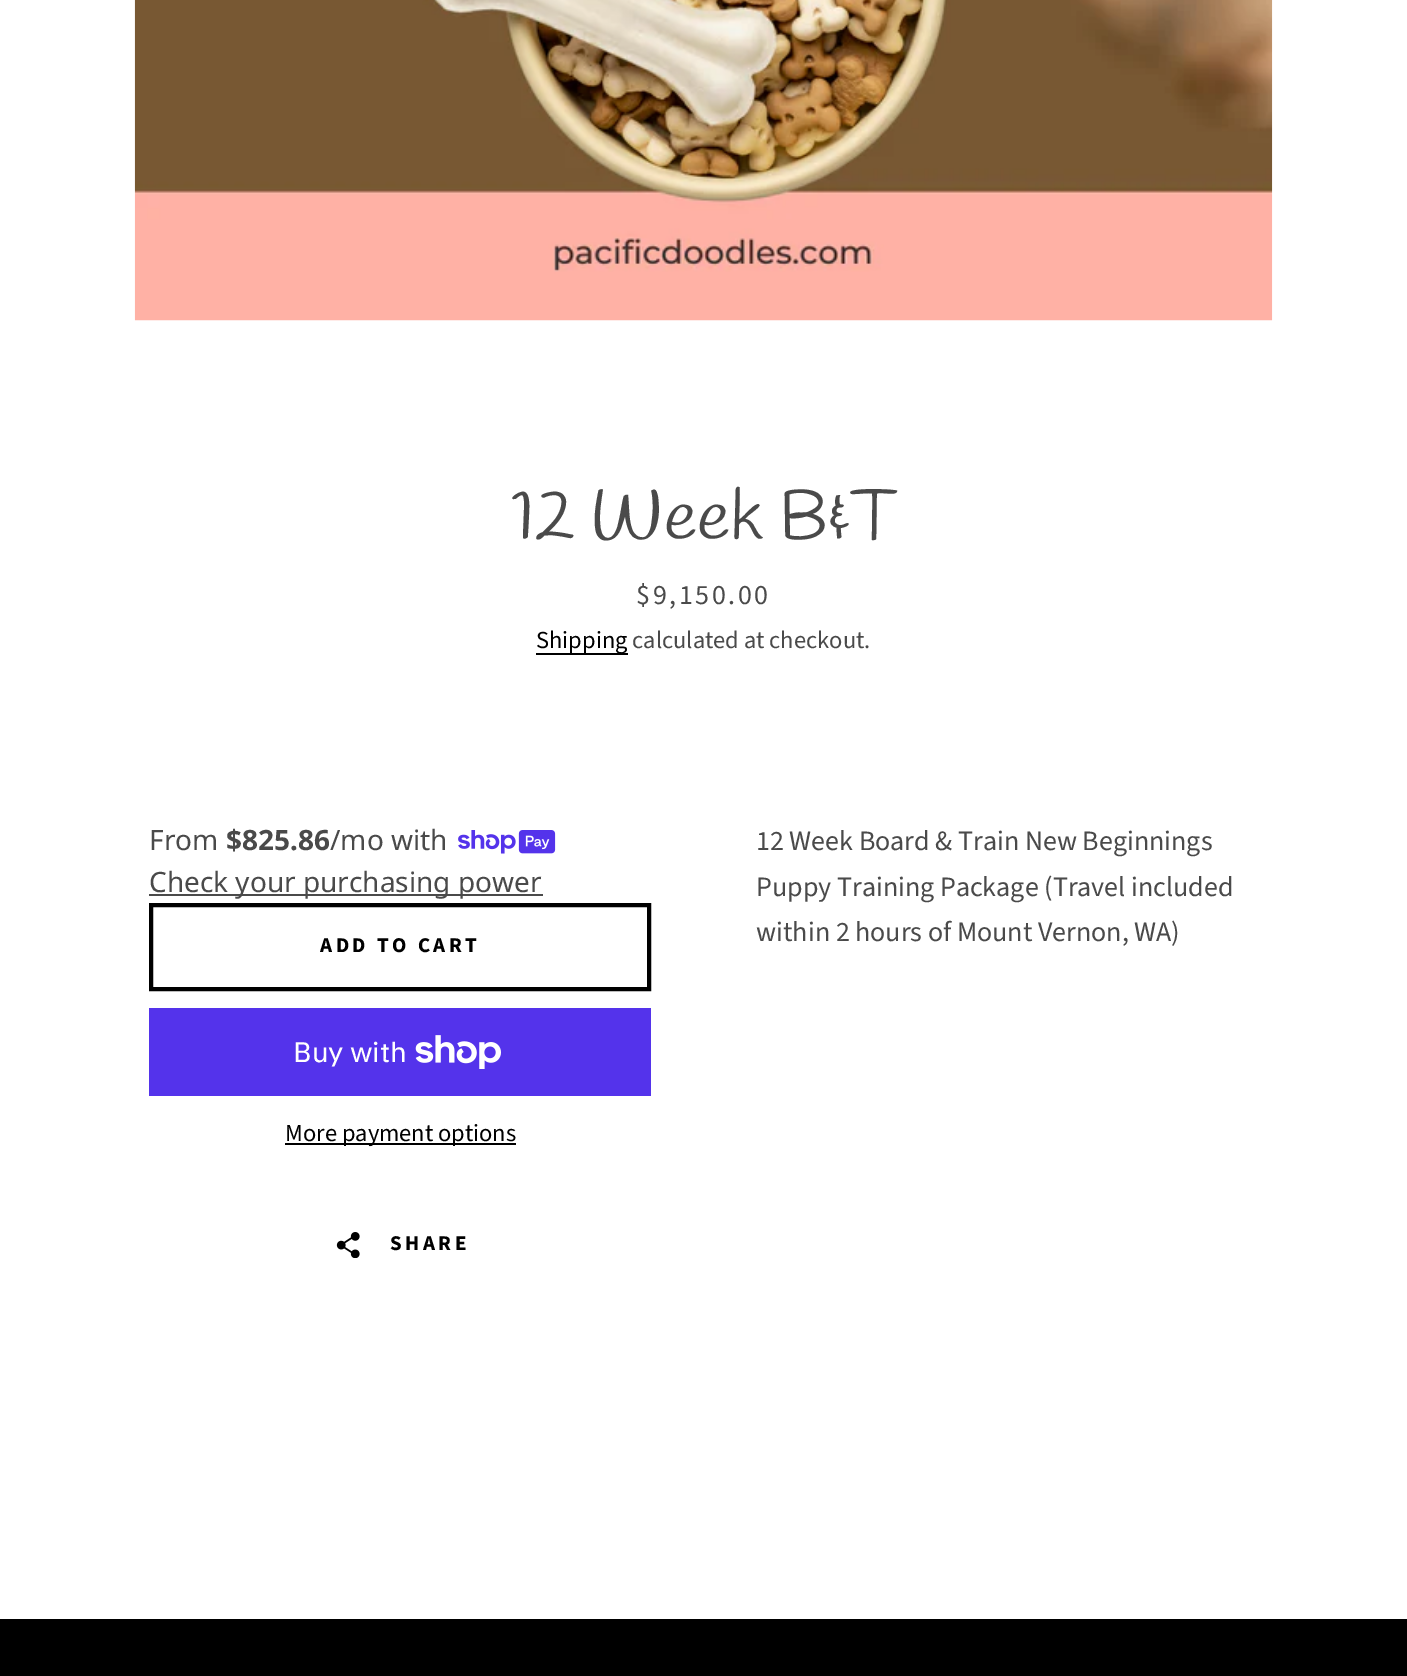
%!PS
<< /PageSize [1407 1676] >> setpagedevice
/rgb { dup -16 bitshift 255 div exch dup -8 bitshift 255 and 255 div exch 255 and 255 div setrgbcolor } def
/font { [ exch dup neg 0 0 3 -1 roll 0 0 ] selectfont } def
/text { moveto show } def
/picture { 5 dict begin { /h /w /y /x /name } { exch def } forall
  gsave x y translate w h scale
  w h 8 [w 0 0 h 0 0] name (r) file false 3 colorimage grestore end } def
0 1676 translate 1 -1 scale
4 setmiterlimit
/s1 { /Handlee-Regular 70 font 16#4A4A4A rgb } def
/s2 { /SourceSansPro-Regular 24.5 font 16#000000 rgb } def
/s3 { /SourceSansPro-Regular 24.5 font 16#4A4A4A rgb } def
/s4 { /NotoSans-Regular 28 font 16#4A4A4A rgb } def
/s5 { /NotoSans-Bold 28 font 16#4A4A4A rgb } def
/s6 { /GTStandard-Regular 28 font 16#FFFFFF rgb } def
/s7 { /SourceSansPro-Regular 28 font 16#4A4A4A rgb } def
16#000000 rgb
0 0 1407 1676 rectfill
16#FFFFFF rgb
0 0 1407 1619 rectfill
(pic1.raw) 134 0 1139 321 picture
s1
(12 Week B&T) 511 539 text
/SourceSansPro-Regular 28 font
636 604 moveto 2.6 0 ($9,150.00) ashow
s2
(Shipping) 536 648 text
536 653 92 2 rectfill
s3
(calculated at checkout.) 632 648 text
s4
(From) 149 850 text
s5
($825.86) 226 850 text
s4
(/mo with) 330 850 text
(pic2.raw) 458 830 98 24 picture
149 894 394 2 rectfill
(Check your purchasing power) 149 892 text
16#000000 rgb
4 setlinewidth
151 905 498 84 rectstroke
/SourceSansPro-Bold 21 font
320 952 moveto 3.5 0 (ADD TO CART) ashow
16#5433EB rgb
149 1008 502 88 rectfill
s6
(Buy with) 293 1062 text
(pic3.raw) 415 1035 86 34 picture
16#000000 rgb
285 1143 231 2 rectfill
s2
(More payment options) 285 1141 text
(pic4.raw) 336 1232 24 26 picture
/SourceSansPro-Bold 21 font
390 1250 moveto 3.5 0 (SHARE) ashow
s7
(12 Week Board & Train New Beginnings) 756 850 text
(Puppy Training Package \(Travel included) 756 896 text
(within 2 hours of Mount Vernon, WA\)) 756 941 text
showpage
